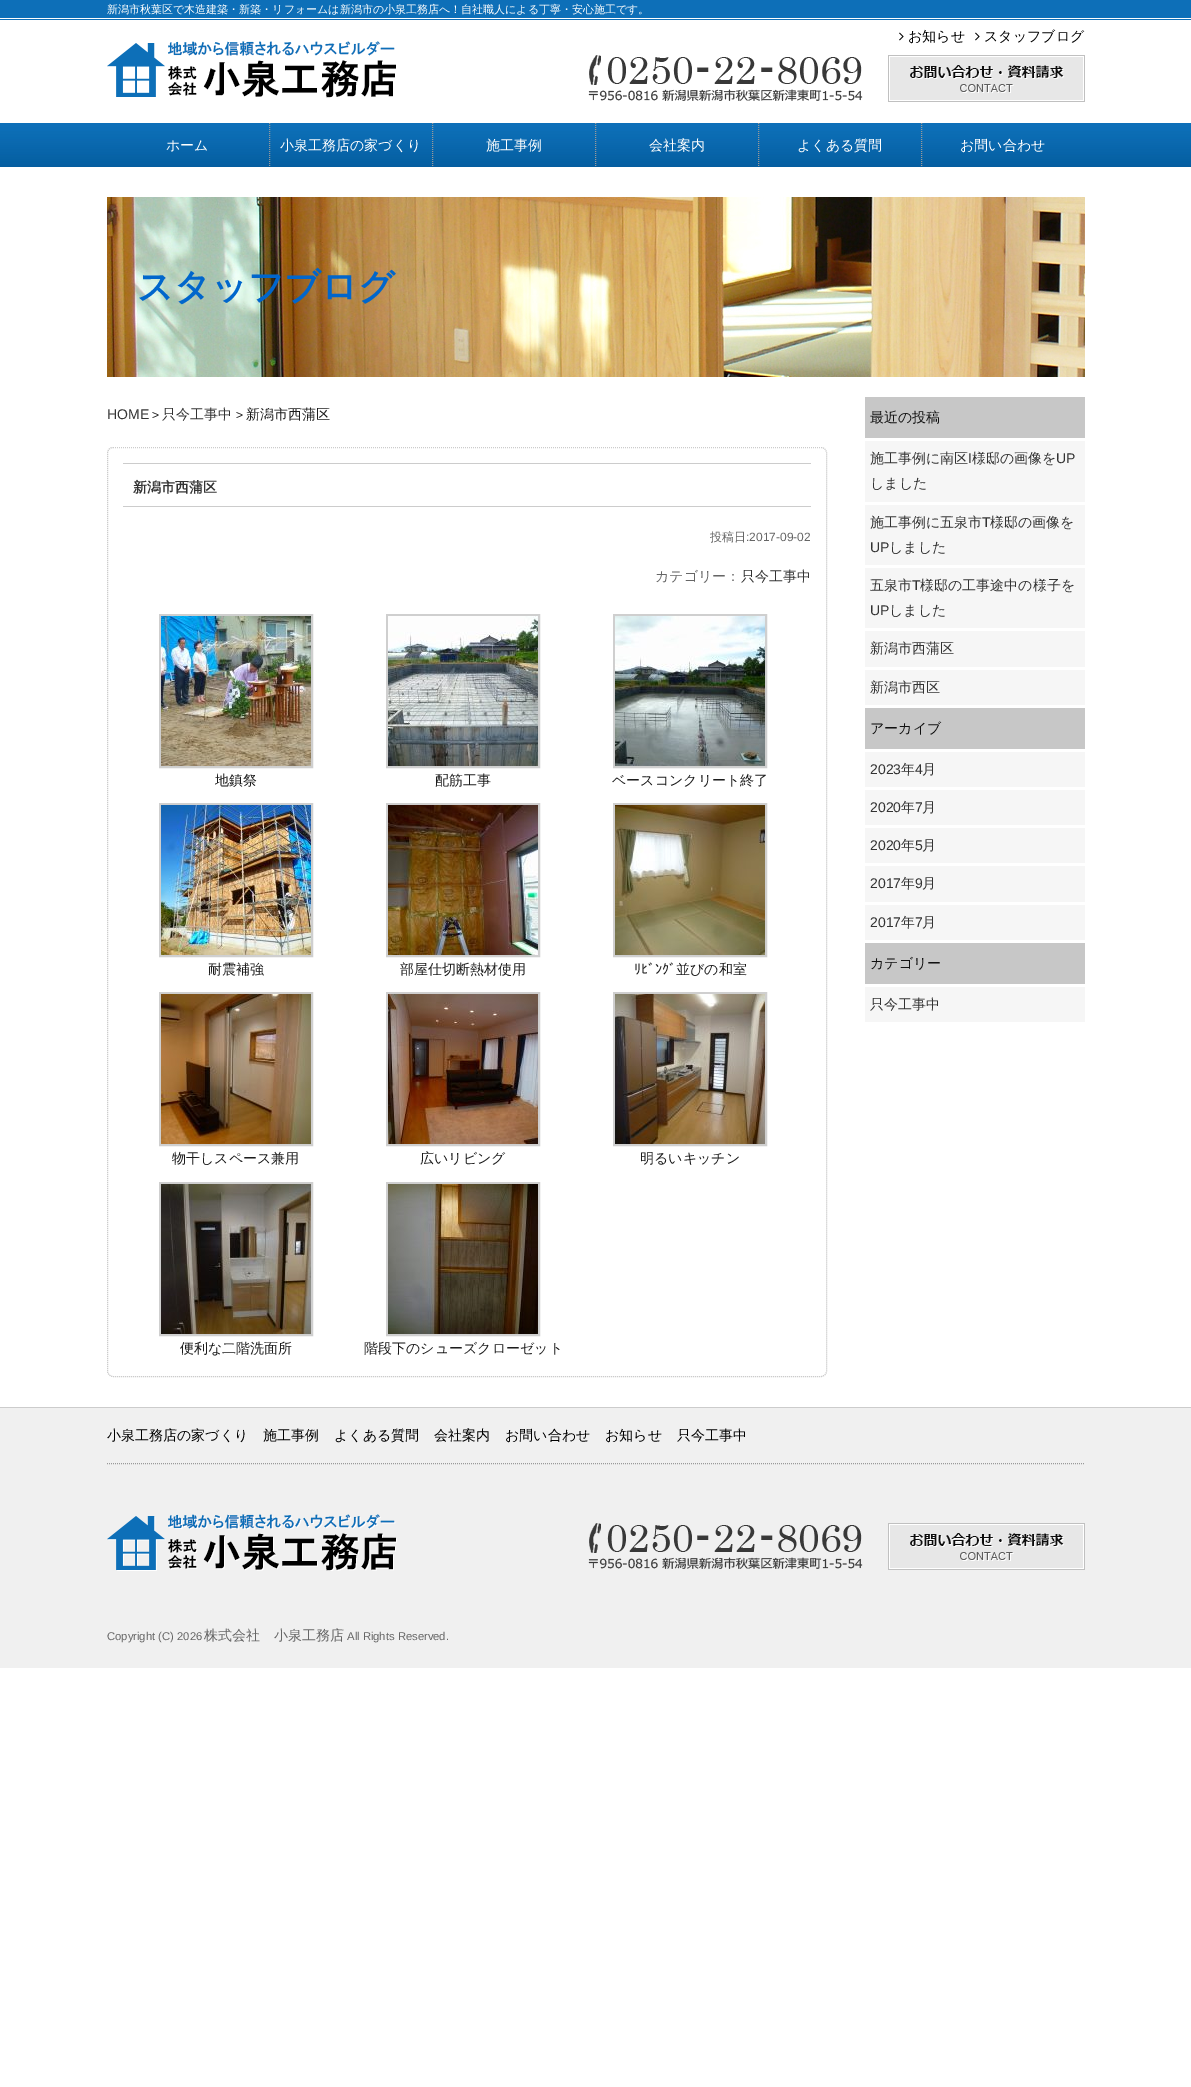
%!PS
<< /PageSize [1191 2087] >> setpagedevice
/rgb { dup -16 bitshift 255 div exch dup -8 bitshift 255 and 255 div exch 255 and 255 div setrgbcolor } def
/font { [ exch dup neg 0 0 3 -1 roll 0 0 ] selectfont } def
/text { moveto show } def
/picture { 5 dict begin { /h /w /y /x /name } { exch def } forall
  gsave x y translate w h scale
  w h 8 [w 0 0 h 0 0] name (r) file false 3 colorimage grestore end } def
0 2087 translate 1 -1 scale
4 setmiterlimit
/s1 { /WenQuanYiZenHei-Medium 11 font 16#FFFFFF rgb } def
/s2 { /WenQuanYiZenHei-Medium 14 font 16#000000 rgb } def
/s3 { /WenQuanYiZenHei-Medium 14 font 16#FFFFFF rgb } def
/s4 { /WenQuanYiZenHei-Bold 36 font 16#0066CC rgb } def
/s5 { /LiberationSans-Regular 14 font 16#333333 rgb } def
/s6 { /LiberationSans-Regular 12 font 16#1C1C1C rgb } def
/s7 { /WenQuanYiZenHei-Medium 14 font 16#333333 rgb } def
/s8 { /WenQuanYiZenHei-Medium 14 font 16#1C1C1C rgb } def
/s9 { /WenQuanYiZenHei-Bold 14 font 16#333333 rgb } def
/s10 { /WenQuanYiZenHei-Medium 12 font 16#666666 rgb } def
/s11 { /LiberationSans-Regular 12 font 16#666666 rgb } def
/s12 { /WenQuanYiZenHei-Medium 14 font 16#666666 rgb } def
/s13 { /IPAPGothic-Regular 14 font 16#1C1C1C rgb } def
/s14 { /WenQuanYiZenHei-Medium 14 font 16#111111 rgb } def
/s15 { /LiberationSans-Regular 11.25 font 16#666666 rgb } def
16#FFFFFF rgb
0 0 1191 2087 rectfill
(pic1.raw) 0 0 1191 20 picture
s1
(新潟市秋葉区で木造建築・新築・リフォームは新潟市の小泉工務店へ！自社職人による丁寧・安心施工です。) 107 13 text
(pic2.raw) 899 32 5 9 picture
s2
(お知らせ) 908 41 text
(pic2.raw) 975 32 5 9 picture
(スタッフブログ) 984 41 text
(pic3.raw) 107 41 289 57 picture
(pic4.raw) 588 55 275 46 picture
(pic5.raw) 888 55 197 47 picture
(pic6.raw) 0 123 1191 44 picture
s3
(ホーム) 166 150 text
16#999999 rgb
[1 1] 0 setdash
269.5 123 moveto 269.5 167 lineto stroke
s3
(小泉工務店の家づくり) 280 150 text
16#999999 rgb
432.5 123 moveto 432.5 167 lineto stroke
s3
(施工事例) 486 150 text
16#999999 rgb
595.5 123 moveto 595.5 167 lineto stroke
s3
(会社案内) 649 150 text
16#999999 rgb
758.5 123 moveto 758.5 167 lineto stroke
s3
(よくある質問) 797 150 text
16#999999 rgb
921.5 123 moveto 921.5 167 lineto stroke
s3
(お問い合わせ) 960 150 text
(pic7.raw) 107 197 978 180 picture
s4
(スタッフブログ) 137 299 text
s5
(HOME) 107 419 text
s6
(>) 152 419 text
s7
(只今工事中) 162 419 text
s6
(>) 236 419 text
s8
(新潟市西蒲区) 246 419 text
16#CCCCCC rgb
113 447.5 moveto 821 447.5 lineto 824 447.5 826.5 450 826.5 453 curveto 826.5 1371 lineto 826.5 1374 824 1376.5 821 1376.5 curveto 113 1376.5 lineto 110 1376.5 107.5 1374 107.5 1371 curveto 107.5 453 lineto 107.5 450 110 447.5 113 447.5 curveto closepath stroke
123 463 688 1 rectfill
123 506 688 1 rectfill
s9
(新潟市西蒲区) 133 492 text
s10
(投稿日) 710 541 text
s11
(:2017-09-02) 746 541 text
s12
(カテゴリー：) 655 581 text
s7
(只今工事中) 741 581 text
16#CFCFCF rgb
2 setlinewidth
[] 0 setdash
160 615 152 152 rectstroke
(pic8.raw) 161 616 150 150 picture
s8
(地鎮祭) 215 785 text
16#CFCFCF rgb
387 615 152 152 rectstroke
(pic9.raw) 388 616 150 150 picture
s8
(配筋工事) 435 785 text
16#CFCFCF rgb
614 615 152 152 rectstroke
(pic10.raw) 615 616 150 150 picture
s8
(ベースコンクリート終了) 612 785 text
16#CFCFCF rgb
160 804 152 152 rectstroke
(pic11.raw) 161 805 150 150 picture
s8
(耐震補強) 208 974 text
16#CFCFCF rgb
387 804 152 152 rectstroke
(pic12.raw) 388 805 150 150 picture
s8
(部屋仕切断熱材使用) 400 974 text
16#CFCFCF rgb
614 804 152 152 rectstroke
(pic13.raw) 615 805 150 150 picture
s13
(ﾘﾋﾞﾝｸﾞ) 634 974 text
s8
(並びの和室) 676 974 text
16#CFCFCF rgb
160 993 152 152 rectstroke
(pic14.raw) 161 994 150 150 picture
s8
(物干しスペース兼用) 172 1163 text
16#CFCFCF rgb
387 993 152 152 rectstroke
(pic15.raw) 388 994 150 150 picture
s8
(広いリビング) 420 1163 text
16#CFCFCF rgb
614 993 152 152 rectstroke
(pic16.raw) 615 994 150 150 picture
s8
(明るいキッチン) 640 1163 text
16#CFCFCF rgb
160 1183 152 152 rectstroke
(pic17.raw) 161 1184 150 150 picture
s8
(便利な二階洗面所) 180 1353 text
16#CFCFCF rgb
387 1183 152 152 rectstroke
(pic18.raw) 388 1184 150 150 picture
s8
(階段下のシューズクローゼット) 364 1353 text
16#C7C7C7 rgb
865 397 220 41 rectfill
s14
(最近の投稿) 870 422 text
16#F6F6F6 rgb
865 441 220 61 rectfill
s7
(施工事例に南区) 870 463 text
s5
(I) 968 463 text
s7
(様邸の画像を) 972 463 text
s5
(UP) 1056 463 text
s7
(しました) 870 488 text
16#F6F6F6 rgb
865 505 220 60 rectfill
s7
(施工事例に五泉市) 870 527 text
s5
(T) 982 527 text
s7
(様邸の画像を) 990 527 text
s5
(UP) 870 552 text
s7
(しました) 889 552 text
16#F6F6F6 rgb
865 568 220 60 rectfill
s7
(五泉市) 870 590 text
s5
(T) 912 590 text
s7
(様邸の工事途中の様子を) 920 590 text
s5
(UP) 870 615 text
s7
(しました) 889 615 text
16#F6F6F6 rgb
865 631 220 36 rectfill
s7
(新潟市西蒲区) 870 653 text
16#F6F6F6 rgb
865 670 220 35 rectfill
s7
(新潟市西区) 870 692 text
16#C7C7C7 rgb
865 708 220 41 rectfill
s14
(アーカイブ) 870 733 text
16#F6F6F6 rgb
865 752 220 35 rectfill
s5
(2023) 870 774 text
s7
(年) 901 774 text
s5
(4) 915 774 text
s7
(月) 922 774 text
16#F6F6F6 rgb
865 790 220 35 rectfill
s5
(2020) 870 812 text
s7
(年) 901 812 text
s5
(7) 915 812 text
s7
(月) 922 812 text
16#F6F6F6 rgb
865 828 220 35 rectfill
s5
(2020) 870 850 text
s7
(年) 901 850 text
s5
(5) 915 850 text
s7
(月) 922 850 text
16#F6F6F6 rgb
865 866 220 36 rectfill
s5
(2017) 870 888 text
s7
(年) 901 888 text
s5
(9) 915 888 text
s7
(月) 922 888 text
16#F6F6F6 rgb
865 905 220 35 rectfill
s5
(2017) 870 927 text
s7
(年) 901 927 text
s5
(7) 915 927 text
s7
(月) 922 927 text
16#C7C7C7 rgb
865 943 220 41 rectfill
s14
(カテゴリー) 870 968 text
16#F6F6F6 rgb
865 987 220 35 rectfill
s7
(只今工事中) 870 1009 text
16#F0F0F0 rgb
0 1408 1191 260 rectfill
16#CCCCCC rgb
0 1407 1191 1 rectfill
16#999999 rgb
1 setlinewidth
[1 1] 0 setdash
107 1463.5 moveto 1085 1463.5 lineto stroke
s2
(小泉工務店の家づくり) 107 1440 text
(施工事例) 263 1440 text
(よくある質問) 334 1440 text
(会社案内) 434 1440 text
(お問い合わせ) 505 1440 text
(お知らせ) 605 1440 text
(只今工事中) 677 1440 text
(pic19.raw) 107 1514 290 57 picture
(pic20.raw) 588 1523 275 46 picture
(pic5.raw) 888 1523 197 47 picture
s15
(Copyright \(C\) 2026) 107 1640 text
s12
(株式会社　小泉工務店) 204 1640 text
s15
(All Rights Reserved.) 347 1640 text
showpage
